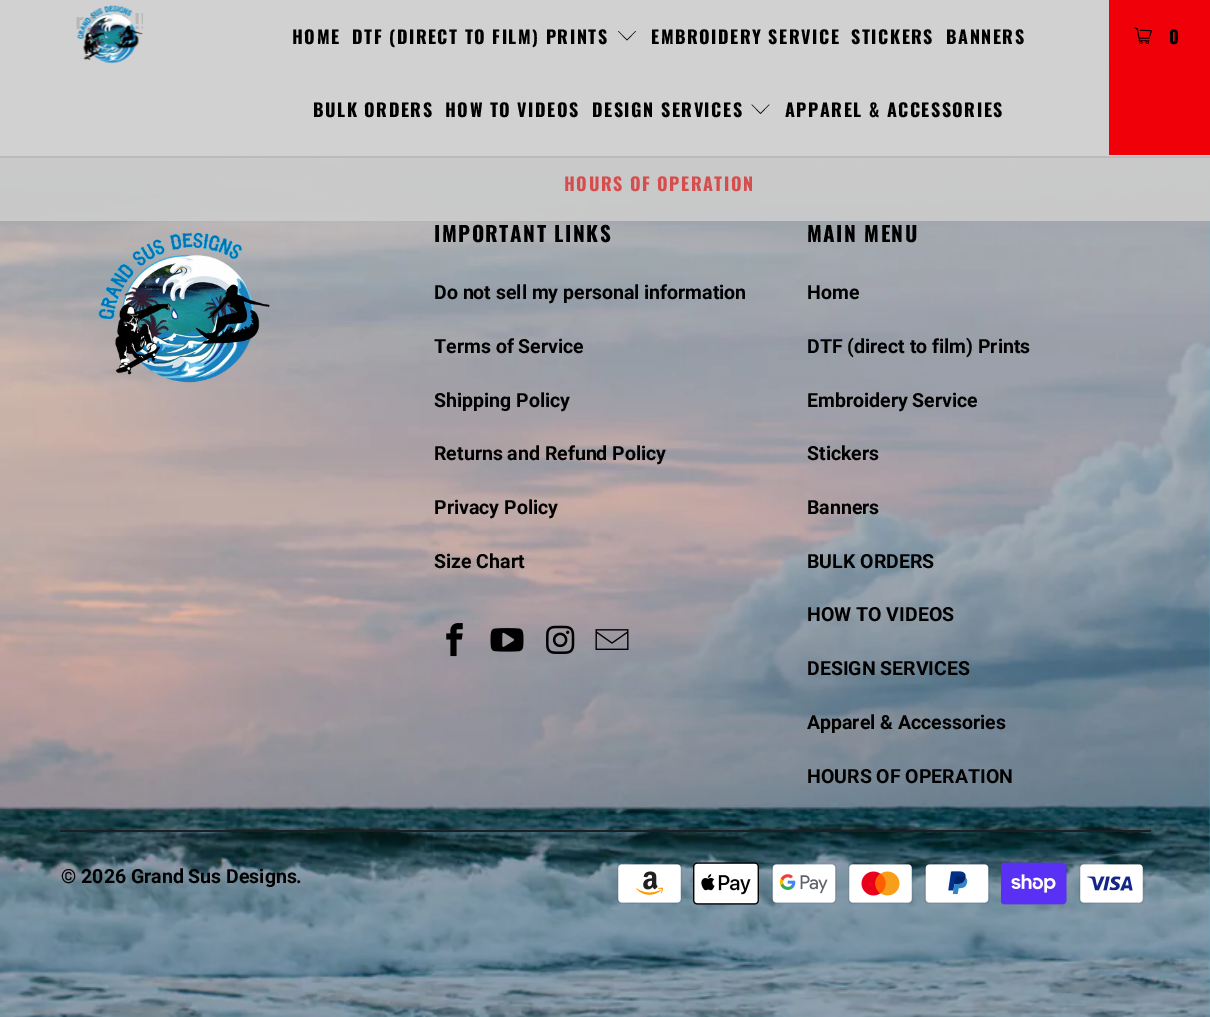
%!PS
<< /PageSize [1210 1017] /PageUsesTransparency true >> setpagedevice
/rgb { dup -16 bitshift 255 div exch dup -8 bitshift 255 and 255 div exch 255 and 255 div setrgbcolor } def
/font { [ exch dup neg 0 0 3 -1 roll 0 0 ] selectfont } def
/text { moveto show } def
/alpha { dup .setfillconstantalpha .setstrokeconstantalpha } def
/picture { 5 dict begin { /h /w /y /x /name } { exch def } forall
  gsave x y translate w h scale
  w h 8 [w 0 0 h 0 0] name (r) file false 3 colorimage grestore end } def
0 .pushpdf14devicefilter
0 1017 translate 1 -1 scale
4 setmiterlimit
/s1 { /Roboto-Bold 19.5 font 16#000000 rgb } def
16#FFFFFF rgb
0 0 1210 1017 rectfill
16#E7F3F1 rgb
24 71 1085 2 rectfill
(pic3.raw) 0 155 1210 862 picture
16#1B1F23 rgb
0 156 1210 2 rectfill
0.9 alpha
16#CCCCCC rgb
0 0 1210 221 rectfill
1 alpha
(pic1.raw) 76 5 67 59 picture
/Oswald-Bold 18 font
16#000000 rgb
292 44 moveto 1.5 0 (HOME) ashow
352 44 moveto 1.5 0 (DTF \(DIRECT TO FILM\) PRINTS) ashow
627 40.5 moveto 618 31 lineto 618.5 31 lineto 627 39.5 lineto 635.5 31 lineto 636 31 lineto closepath fill
651 44 moveto 1.5 0 (EMBROIDERY SERVICE) ashow
851 44 moveto 1.5 0 (STICKERS) ashow
946 44 moveto 1.5 0 (BANNERS) ashow
313 117 moveto 1.5 0 (BULK ORDERS) ashow
445 117 moveto 1.5 0 (HOW TO VIDEOS) ashow
592 117 moveto 1.5 0 (DESIGN SERVICES) ashow
760.5 114 moveto 751.5 104.5 lineto 752 104.5 lineto 760.5 113 lineto 769 104.5 lineto 769.5 104.5 lineto closepath fill
785 117 moveto 1.5 0 (APPAREL & ACCESSORIES) ashow
16#D54D4D rgb
564 191 moveto 1.5 0 (HOURS OF OPERATION) ashow
16#F00009 rgb
1109 0 101 155 rectfill
(pic2.raw) 1134 27 18 18 picture
16#000000 rgb
1169 44 moveto 1.5 0 (0) ashow
(pic4.raw) 98 232 172 151 picture
/Oswald-Bold 21 font
434 242 moveto 1.5 0 (IMPORTANT LINKS) ashow
s1
(Do not sell my personal information) 434 299 text
(Terms of Service) 434 353 text
(Shipping Policy) 434 407 text
(Returns and Refund Policy) 434 460 text
(Privacy Policy) 434 514 text
(Size Chart) 434 568 text
(pic5.raw) 446 623 17 34 picture
(pic6.raw) 490 628 34 24 picture
(pic7.raw) 546 625 29 29 picture
(pic8.raw) 595 629 34 21 picture
/Oswald-Bold 21 font
807 242 moveto 1.5 0 (MAIN MENU) ashow
s1
(Home) 807 299 text
(DTF \(direct to film\) Prints) 807 353 text
(Embroidery Service) 807 407 text
(Stickers) 807 460 text
(Banners) 807 514 text
(BULK ORDERS) 807 568 text
(HOW TO VIDEOS) 807 621 text
(DESIGN SERVICES) 807 675 text
(Apparel & Accessories) 807 729 text
(HOURS OF OPERATION) 807 783 text
16#1B1F23 rgb
60 830 1091 2 rectfill
s1
(© 2026 Grand Sus Designs) 61 883 text
(.) 296 883 text
(pic9.raw) 617 863 66 41 picture
(pic10.raw) 693 862 66 43 picture
(pic11.raw) 771 862 66 42 picture
(pic12.raw) 848 863 66 41 picture
(pic13.raw) 924 863 66 41 picture
(pic14.raw) 1001 862 66 43 picture
(pic15.raw) 1079 863 66 41 picture
.poppdf14devicefilter showpage
